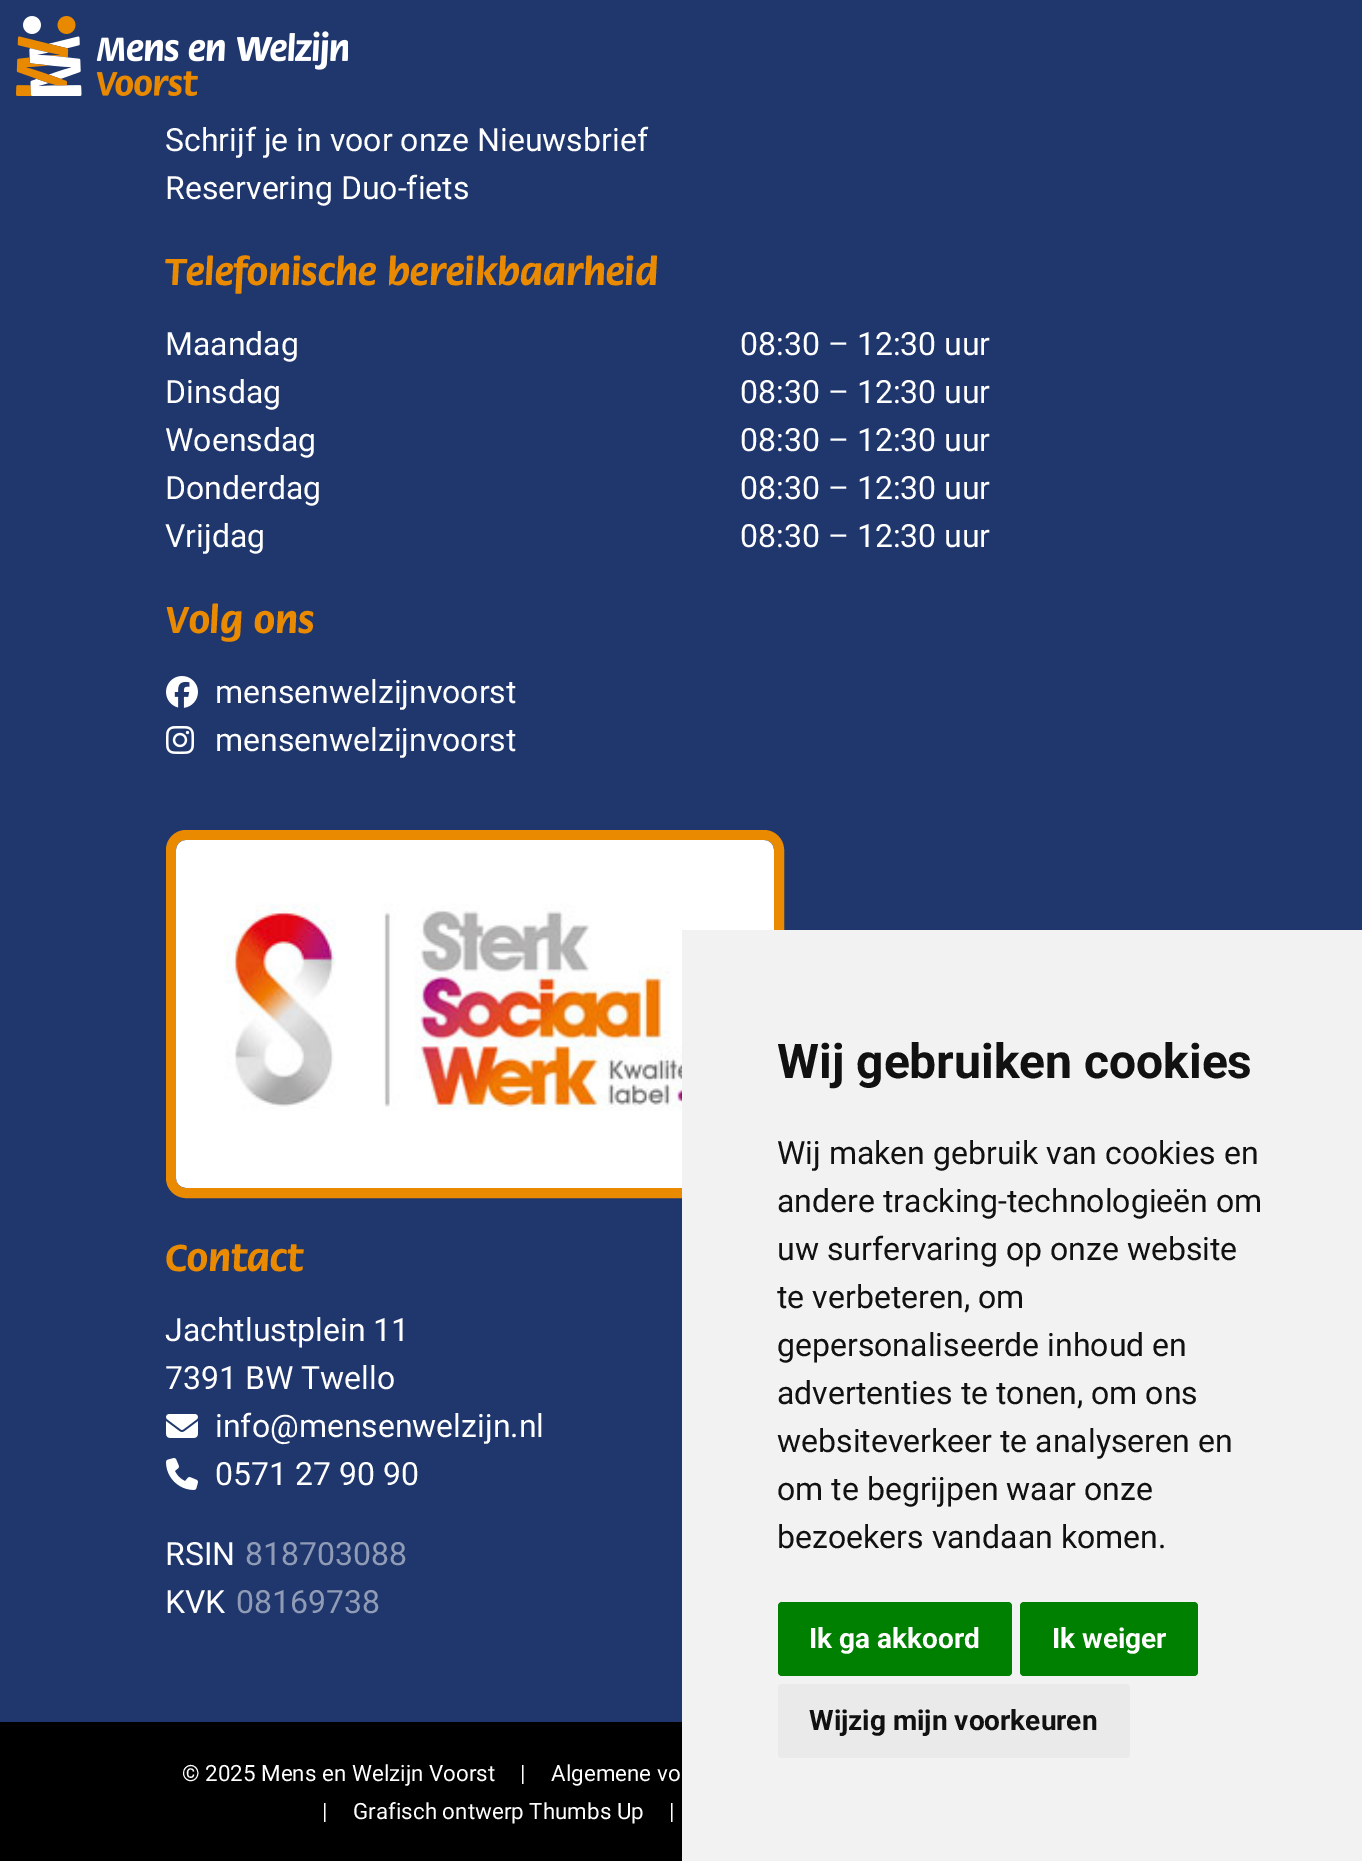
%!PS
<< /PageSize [1362 1861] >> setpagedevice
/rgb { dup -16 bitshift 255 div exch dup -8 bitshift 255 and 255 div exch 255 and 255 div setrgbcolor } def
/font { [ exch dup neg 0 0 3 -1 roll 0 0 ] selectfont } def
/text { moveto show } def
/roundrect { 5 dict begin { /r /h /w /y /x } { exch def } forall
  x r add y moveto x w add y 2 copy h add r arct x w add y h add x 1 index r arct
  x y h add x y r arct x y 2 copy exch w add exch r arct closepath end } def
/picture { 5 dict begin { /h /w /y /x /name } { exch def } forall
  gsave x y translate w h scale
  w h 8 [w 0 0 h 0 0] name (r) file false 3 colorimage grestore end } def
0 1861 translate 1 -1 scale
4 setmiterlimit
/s1 { /Roboto-Regular 32 font 16#FFFFFF rgb } def
/s2 { /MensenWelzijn-Bold 40 font 16#EA8A00 rgb } def
/s3 { /Roboto-Regular 32 font 16#909BB6 rgb } def
/s4 { /Roboto-Regular 22.4 font 16#FFFFFF rgb } def
/s5 { /Roboto-Bold 48 font 16#111111 rgb } def
/s6 { /Roboto-Regular 32 font 16#111111 rgb } def
/s7 { /Roboto-Bold 28 font 16#FFFFFF rgb } def
/s8 { /Roboto-Bold 28 font 16#111111 rgb } def
16#000000 rgb
0 0 1362 1861 rectfill
16#20376D rgb
0 0 1362 1722 rectfill
(pic1.raw) 16 16 332 80 picture
s1
(Schrijf je in voor onze Nieuwsbrief) 165 151 text
(Reservering Duo-fiets) 165 199 text
s2
(Telefonische bereikbaarheid) 165 285 text
s1
(Maandag) 165 355 text
(08:30 – 12:30 uur) 740 355 text
(Dinsdag) 165 403 text
(08:30 – 12:30 uur) 740 403 text
(Woensdag) 165 451 text
(08:30 – 12:30 uur) 740 451 text
(Donderdag) 165 499 text
(08:30 – 12:30 uur) 740 499 text
(Vrijdag) 165 547 text
(08:30 – 12:30 uur) 740 547 text
s2
(Volg ons) 165 633 text
(pic2.raw) 166 676 32 32 picture
s1
(mensenwelzijnvoorst) 215 703 text
(pic3.raw) 166 726 28 28 picture
(mensenwelzijnvoorst) 215 751 text
16#EA8A00 rgb
10 setlinewidth
171 835 608 358 15 roundrect stroke
(pic4.raw) 176 840 598 348 picture
s2
(Contact) 165 1271 text
s1
(Jachtlustplein 11) 165 1341 text
(7391 BW Twello) 165 1389 text
(pic5.raw) 166 1414 32 24 picture
(info@mensenwelzijn.nl) 215 1437 text
(pic6.raw) 166 1458 32 32 picture
(0571 27 90 90) 215 1485 text
(RSIN) 165 1565 text
s3
(818703088) 245 1565 text
s1
(KVK) 165 1613 text
s3
(08169738) 236 1613 text
s4
(© 2025 Mens en Welzijn Voorst) 182 1781 text
(|) 520 1781 text
(Algemene vo) 551 1781 text
(|) 322 1819 text
(Grafisch ontwerp Thumbs Up) 353 1819 text
(|) 669 1819 text
16#F2F2F2 rgb
682 930 680 931 rectfill
s5
(Wij gebruiken cookies) 777 1078 text
s6
(Wij maken gebruik van cookies en) 777 1164 text
(andere tracking-technologieën om) 777 1212 text
(uw surfervaring op onze website) 777 1260 text
(te verbeteren, om) 777 1308 text
(gepersonaliseerde inhoud en) 777 1356 text
(advertenties te tonen, om ons) 777 1404 text
(websiteverkeer te analyseren en) 777 1452 text
(om te begrijpen waar onze) 777 1500 text
(bezoekers vandaan komen.) 777 1548 text
16#008000 rgb
778 1602 234 74 4 roundrect fill
s7
(Ik ga akkoord) 809 1648 text
16#008000 rgb
1020 1602 178 74 4 roundrect fill
s7
(Ik weiger) 1052 1648 text
16#EAEAEA rgb
778 1684 352 74 4 roundrect fill
s8
(Wijzig mijn voorkeuren) 809 1730 text
showpage
